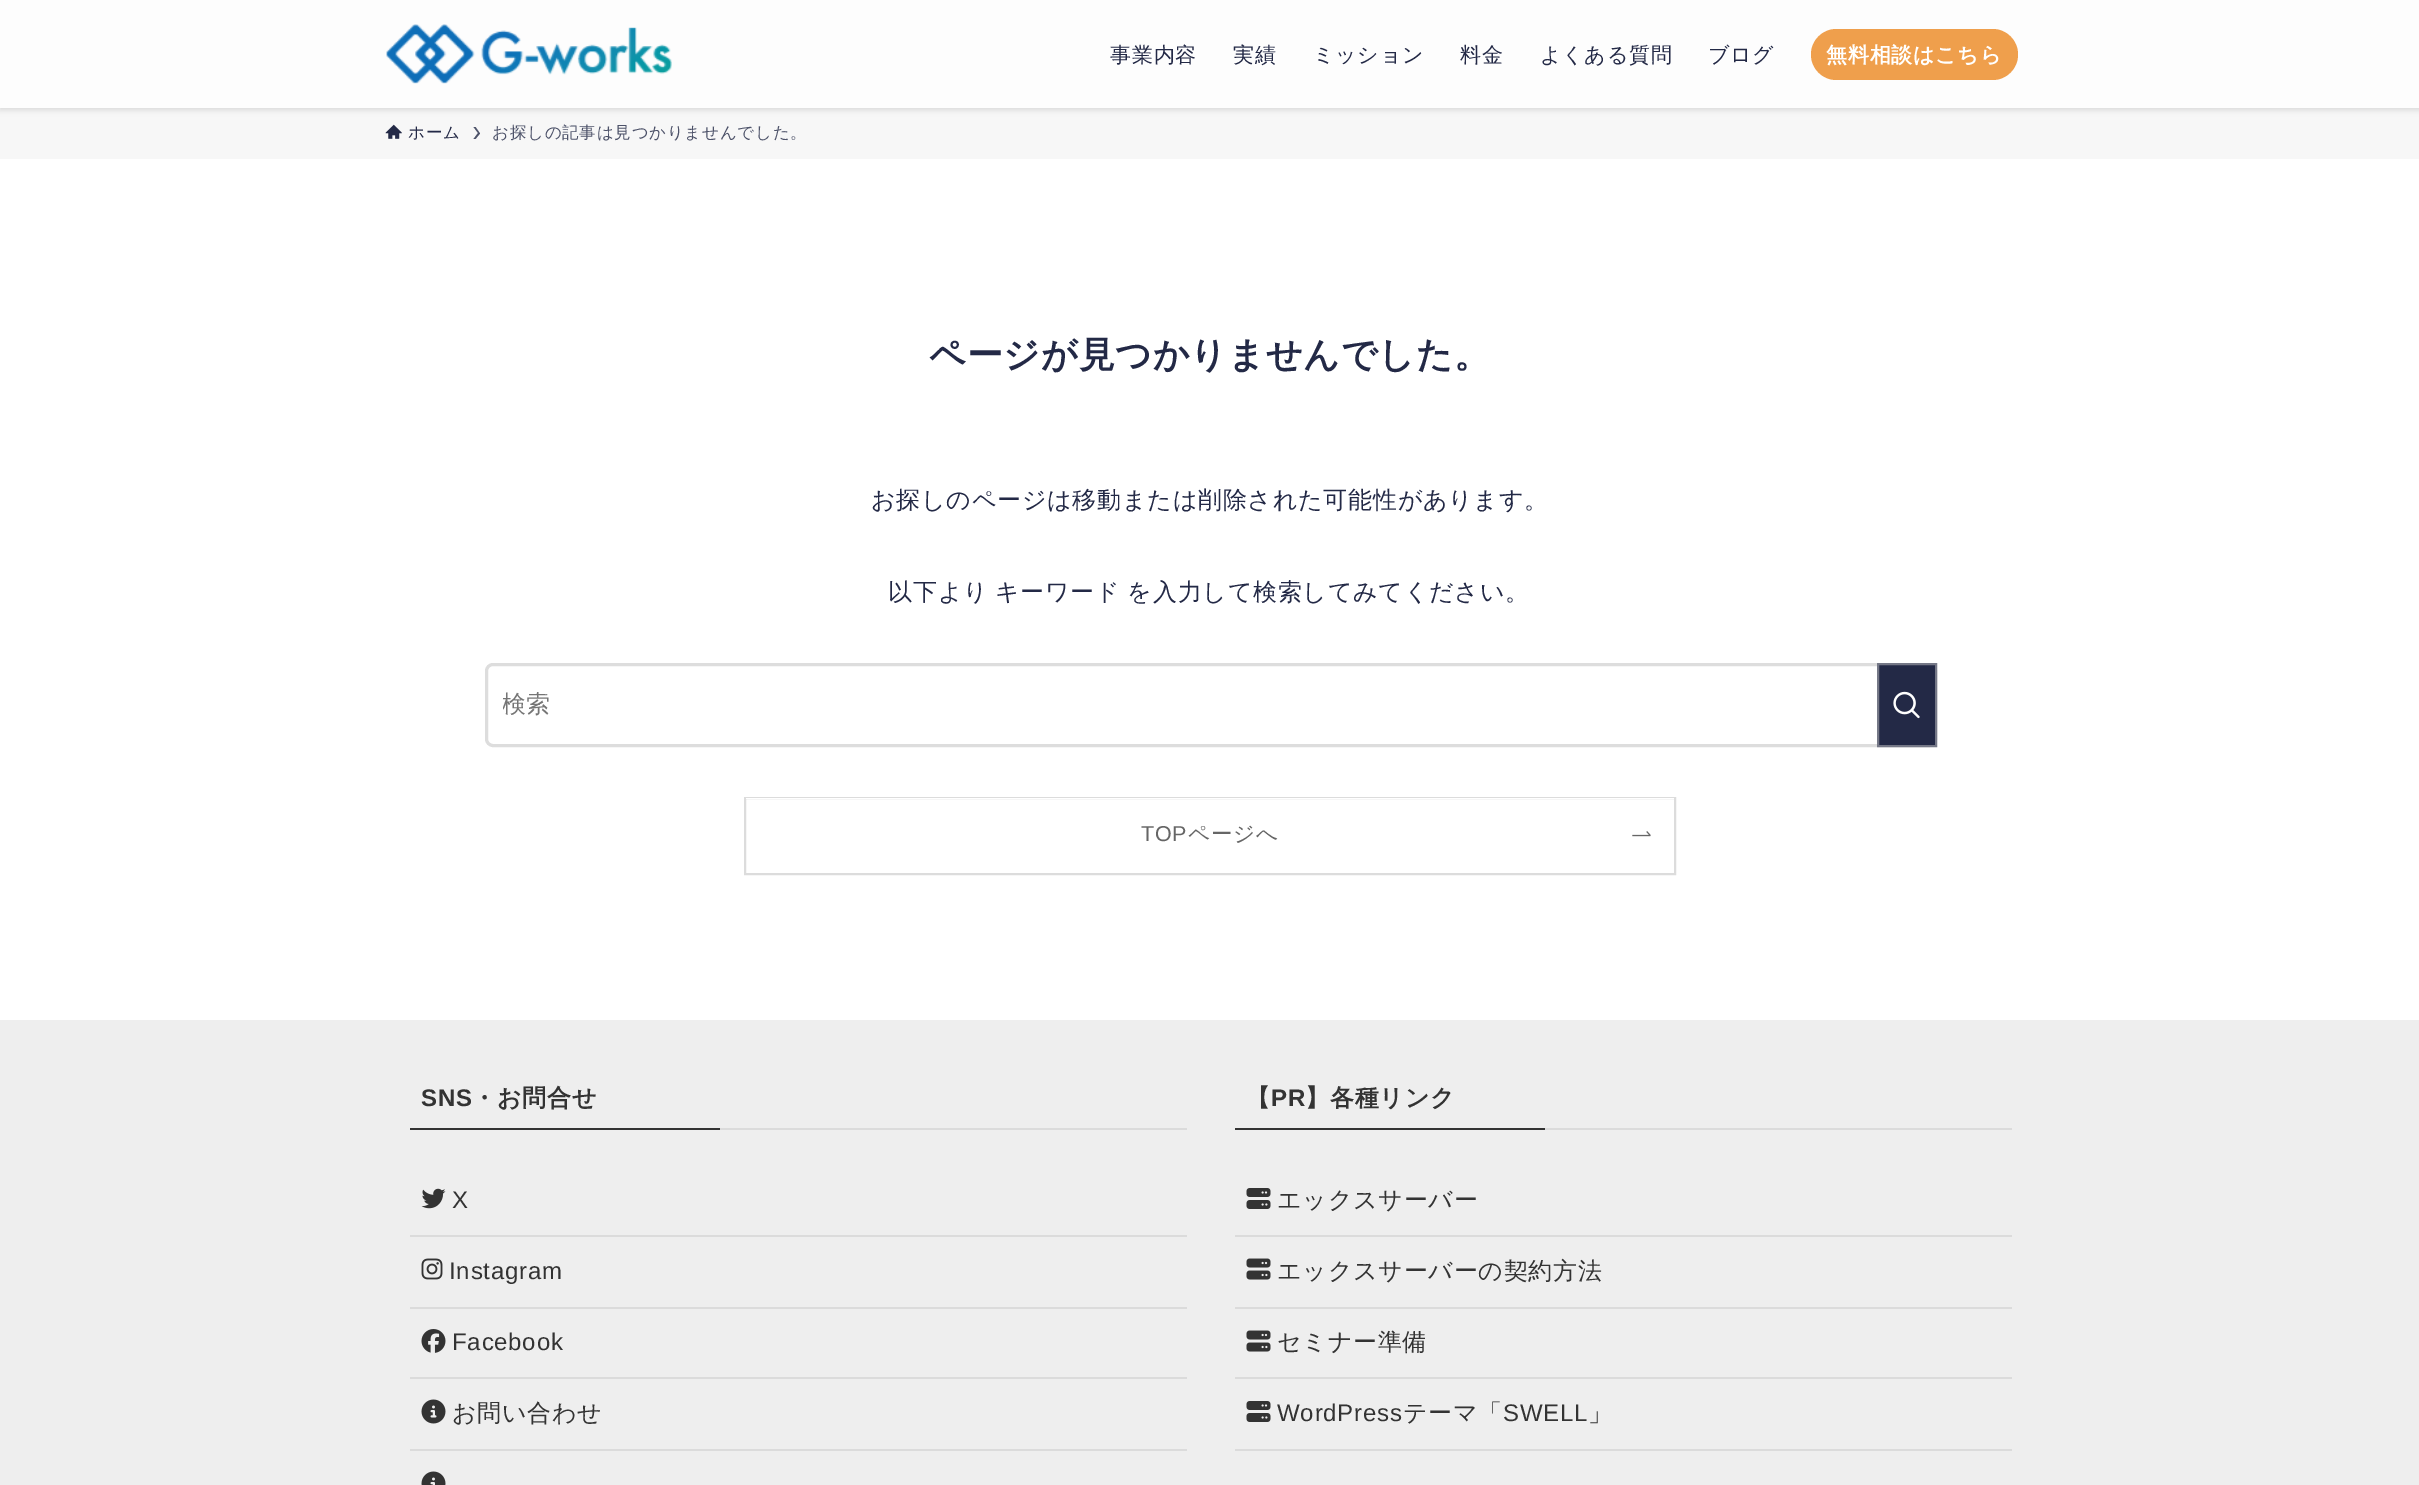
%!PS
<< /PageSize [2419 1485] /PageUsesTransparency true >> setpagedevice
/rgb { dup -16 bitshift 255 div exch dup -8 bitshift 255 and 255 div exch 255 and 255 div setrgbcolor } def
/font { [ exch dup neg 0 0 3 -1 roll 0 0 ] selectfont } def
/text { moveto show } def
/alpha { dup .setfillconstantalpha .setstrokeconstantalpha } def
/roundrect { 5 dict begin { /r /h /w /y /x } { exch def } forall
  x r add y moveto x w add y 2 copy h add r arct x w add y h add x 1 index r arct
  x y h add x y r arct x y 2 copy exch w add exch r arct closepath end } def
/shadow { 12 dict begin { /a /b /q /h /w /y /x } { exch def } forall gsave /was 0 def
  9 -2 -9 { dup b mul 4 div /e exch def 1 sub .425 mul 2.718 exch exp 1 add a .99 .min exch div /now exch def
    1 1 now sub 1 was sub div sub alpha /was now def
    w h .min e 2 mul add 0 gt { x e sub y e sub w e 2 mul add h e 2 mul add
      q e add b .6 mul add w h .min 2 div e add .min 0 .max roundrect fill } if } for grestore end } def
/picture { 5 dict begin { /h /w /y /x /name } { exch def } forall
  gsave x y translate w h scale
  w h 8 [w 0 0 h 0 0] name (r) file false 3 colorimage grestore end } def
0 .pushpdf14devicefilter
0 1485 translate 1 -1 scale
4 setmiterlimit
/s1 { /WenQuanYiZenHei-Medium 24 font 16#757575 rgb } def
16#FFFFFF rgb
0 0 2419 1485 rectfill
16#F7F7F7 rgb
0 108 2419 51 rectfill
16#000000 rgb
0 2 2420 108 0 3 0.12 shadow
16#FDFDFD rgb
0 0 2419 108 rectfill
(pic1.raw) 386 24 286 60 picture
/WenQuanYiZenHei-Medium 21 font
16#232946 rgb
1110 62 moveto 0.75 0 (事業内容) ashow
1233 62 moveto 0.75 0 (実績) ashow
1313 62 moveto 0.75 0 (ミッション) ashow
1460 62 moveto 0.75 0 (料金) ashow
1540 62 moveto 0.75 0 (よくある質問) ashow
1708 62 moveto 0.75 0 (ブログ) ashow
16#EF9F4C rgb
1811 29 207 51 25.5 roundrect fill
/WenQuanYiZenHei-Bold 21 font
16#FFFFFF rgb
1826 62 moveto 0.75 0 (無料相談はこちら) ashow
(pic2.raw) 385 124 17 15 picture
/WenQuanYiZenHei-Medium 16.5 font
16#232946 rgb
408 138 moveto 0.75 0 (ホーム) ashow
16#4D5269 rgb
475.5 127 moveto 473.5 127 lineto 478 133 lineto 473.5 139 lineto 475.5 139 lineto 480 133.5 lineto closepath fill
492 138 moveto 0.75 0 (お探しの記事は見つかりませんでした。) ashow
/WenQuanYiZenHei-Bold 36 font
16#232946 rgb
929 367 moveto 0.75 0 (ページが見つかりませんでした。) ashow
/WenQuanYiZenHei-Medium 24 font
871 508 moveto 0.75 0 (お探しのページは移動または削除された可能性があります。) ashow
888 600 moveto -1 0 32 0.75 0 (以下より キーワード を入力して検索してみてください。) awidthshow
16#DDDDDD rgb
3 setlinewidth
486.5 664.5 1449 81 6.5 roundrect stroke
gsave
503 690 1416 32 rectclip
s1
(検索) 502 712 text
grestore
16#232946 rgb
1878 664 moveto 1936 664 lineto 1936 746 lineto 1878 746 lineto closepath gsave fill grestore
16#757887 rgb
2 setlinewidth
stroke
(pic3.raw) 1893 691 27 28 picture
16#DCDCDC rgb
745 798 930 76 rectstroke
16#FFFFFF rgb
746 798 928 1 rectfill
/LiberationSans-Regular 21.5 font
16#666666 rgb
1141 841 moveto 0.75 0 (TOP) ashow
/WenQuanYiZenHei-Medium 21.5 font
1188 841 moveto 0.75 0 (ページへ) ashow
(pic4.raw) 1632 831 19 6 picture
16#EEEEEE rgb
0 1020 2419 465 rectfill
/LiberationSans-Bold 24 font
16#333333 rgb
421 1106 moveto 0.75 0 (SNS) ashow
/WenQuanYiZenHei-Bold 24 font
472 1106 moveto 0.75 0 (・お問合せ) ashow
410 1128 310 2 rectfill
16#DBDBDB rgb
720 1128 467 2 rectfill
410 1235 777 2 rectfill
(pic5.raw) 421 1188 25 21 picture
/LiberationSans-Regular 24 font
16#333333 rgb
452 1208 moveto 0.75 0 (X) ashow
16#DBDBDB rgb
410 1307 777 2 rectfill
(pic6.raw) 421 1258 22 22 picture
16#333333 rgb
449 1279 moveto 0.75 0 (Instagram) ashow
16#DBDBDB rgb
410 1377 777 2 rectfill
(pic7.raw) 421 1329 25 24 picture
16#333333 rgb
452 1350 moveto 0.75 0 (Facebook) ashow
16#DBDBDB rgb
410 1449 777 2 rectfill
(pic8.raw) 421 1399 25 25 picture
/WenQuanYiZenHei-Medium 24 font
16#333333 rgb
452 1421 moveto 0.75 0 (お問い合わせ) ashow
(pic9.raw) 421 1471 25 14 picture
/WenQuanYiZenHei-Bold 24 font
1246 1106 moveto 0.75 0 (【) ashow
/LiberationSans-Bold 24 font
1271 1106 moveto 0.75 0 (PR) ashow
/WenQuanYiZenHei-Bold 24 font
1305 1106 moveto 0.75 0 (】各種リンク) ashow
1235 1128 310 2 rectfill
16#DBDBDB rgb
1545 1128 467 2 rectfill
1235 1235 777 2 rectfill
(pic10.raw) 1246 1188 25 21 picture
/WenQuanYiZenHei-Medium 24 font
16#333333 rgb
1277 1208 moveto 0.75 0 (エックスサーバー) ashow
16#DBDBDB rgb
1235 1307 777 2 rectfill
(pic11.raw) 1246 1258 25 22 picture
16#333333 rgb
1277 1279 moveto 0.75 0 (エックスサーバーの契約方法) ashow
16#DBDBDB rgb
1235 1377 777 2 rectfill
(pic11.raw) 1246 1330 25 22 picture
16#333333 rgb
1277 1350 moveto 0.75 0 (セミナー準備) ashow
16#DBDBDB rgb
1235 1449 777 2 rectfill
(pic10.raw) 1246 1401 25 21 picture
/LiberationSans-Regular 24 font
16#333333 rgb
1277 1421 moveto 0.75 0 (WordPress) ashow
/WenQuanYiZenHei-Medium 24 font
1403 1421 moveto 0.75 0 (テーマ「) ashow
/LiberationSans-Regular 24 font
1503 1421 moveto 0.75 0 (SWELL) ashow
/WenQuanYiZenHei-Medium 24 font
1588 1421 moveto 0.75 0 (」) ashow
.poppdf14devicefilter showpage
